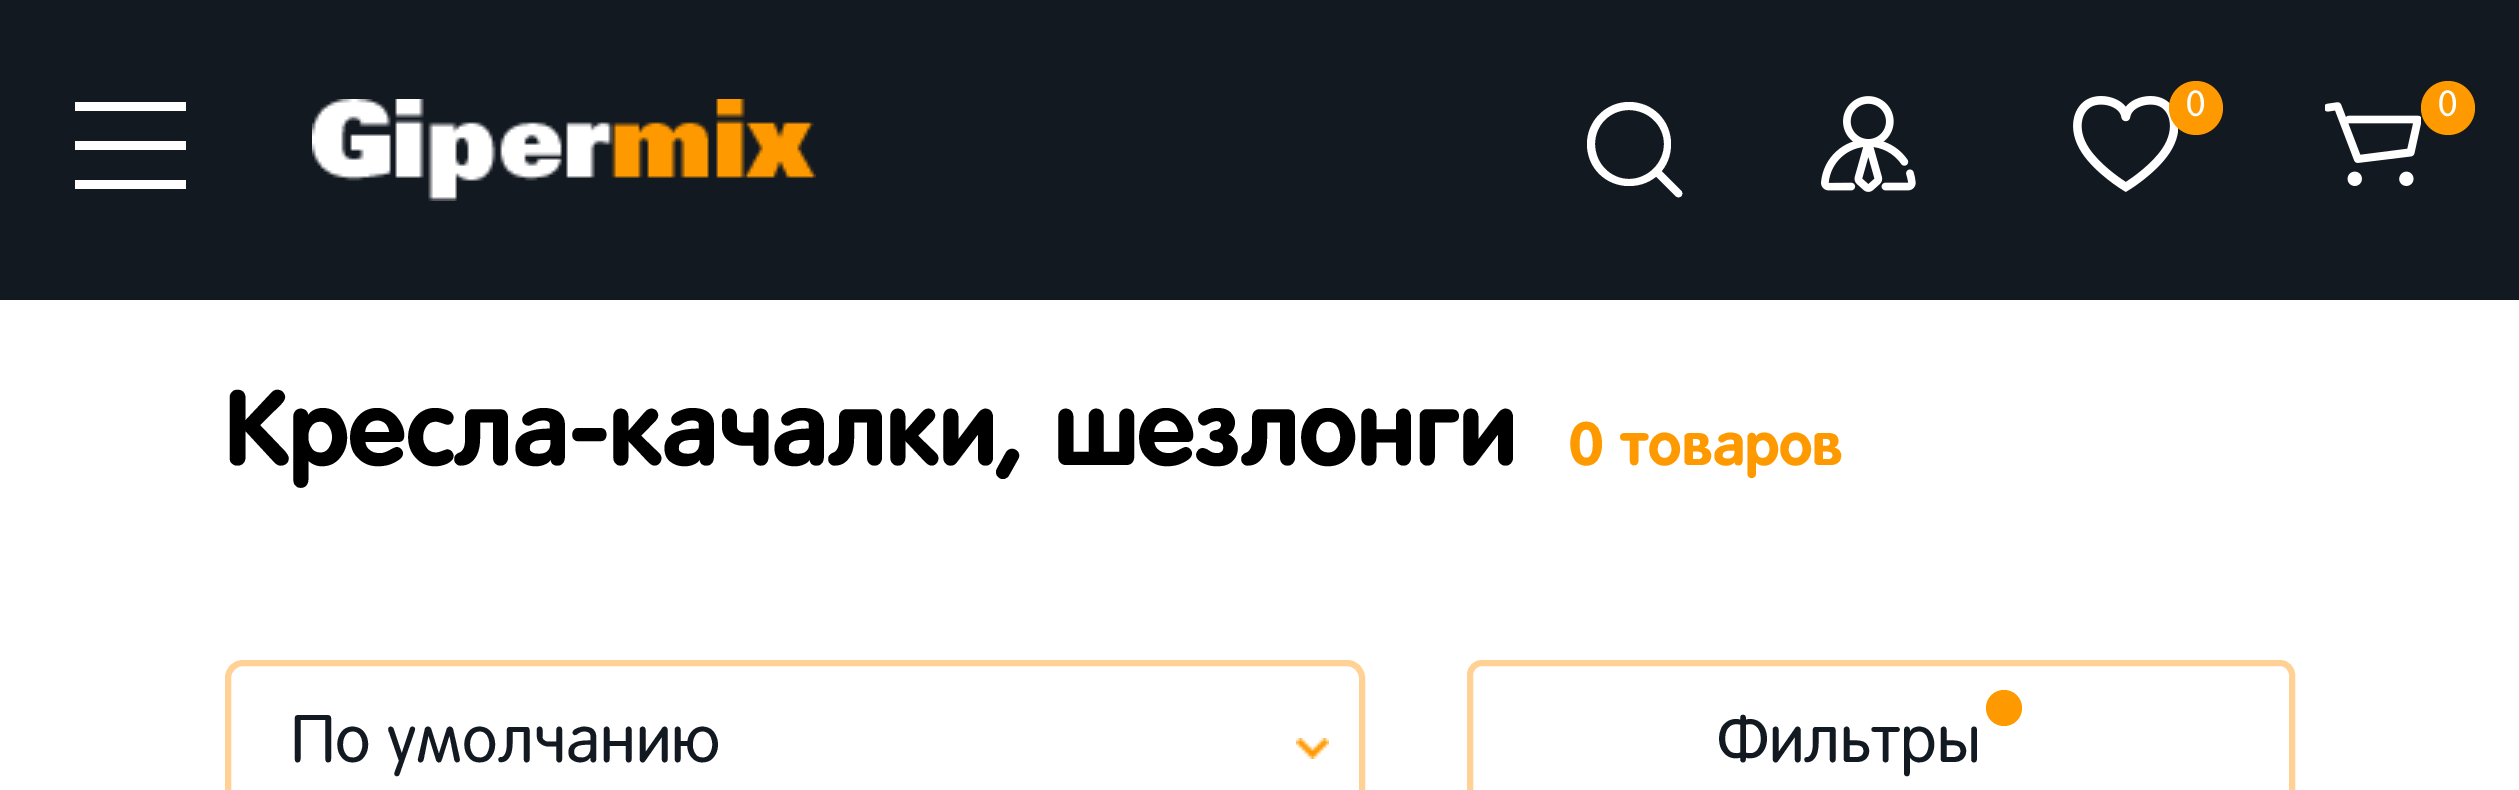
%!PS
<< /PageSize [2519 790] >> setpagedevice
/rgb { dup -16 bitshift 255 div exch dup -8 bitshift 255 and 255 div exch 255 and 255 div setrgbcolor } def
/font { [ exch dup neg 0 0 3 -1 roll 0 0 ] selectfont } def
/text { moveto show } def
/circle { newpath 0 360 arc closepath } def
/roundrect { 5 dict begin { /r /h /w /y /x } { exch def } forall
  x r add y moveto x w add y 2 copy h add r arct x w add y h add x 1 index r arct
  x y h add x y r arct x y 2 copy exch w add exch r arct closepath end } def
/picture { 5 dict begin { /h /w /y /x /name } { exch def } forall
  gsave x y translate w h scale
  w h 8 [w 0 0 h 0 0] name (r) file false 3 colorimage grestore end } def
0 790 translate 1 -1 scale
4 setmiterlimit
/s1 { /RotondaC-Regular 36 font 16#FFFFFF rgb } def
/s2 { /RotondaC-Bold 105 font 16#000000 rgb } def
/s3 { /RotondaC-Bold 60 font 16#FF9900 rgb } def
/s4 { /RotondaC-Regular 66 font 16#131921 rgb } def
16#FFFFFF rgb
0 0 2519 790 rectfill
16#131921 rgb
0 0 2519 300 rectfill
16#FFFFFF rgb
75 102 111 9 rectfill
75 141 111 9 rectfill
75 180 111 9 rectfill
(pic1.raw) 312 99 504 102 picture
1629 110 moveto 1648 110 1664 125 1664 144 curveto 1664 163 1648 179 1629 179 curveto 1610 179 1595 163 1595 144 curveto 1595 125 1610 110 1629 110 curveto 1629 102 moveto 1606 102 1587 121 1587 144 curveto 1587 168 1606 186 1629 186 curveto 1653 186 1671 168 1671 144 curveto 1671 121 1653 102 1629 102 curveto closepath fill
7.7 setlinewidth
1 setlinecap
1657 172 moveto 1678.5 193.5 lineto stroke
(pic2.raw) 1821 96 95 96 picture
(pic3.raw) 2073 96 105 96 picture
16#FF9900 rgb
2196 108 27 circle fill
s1
(0) 2186 116 text
(pic4.raw) 2325 102 96 84 picture
16#FF9900 rgb
2448 108 27 circle fill
s1
(0) 2438 116 text
s2
(Кресла-качалки, шезлонги) 225 465 text
s3
(0 товаров) 1569 465 text
(pic5.raw) 1296 738 33 21 picture
16#FFD195 rgb
6 setlinewidth
0 setlinecap
228 663 1134 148 15 roundrect stroke
s4
(По умолчанию) 291 762 text
16#FFD195 rgb
1470 663 822 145 12 roundrect stroke
16#FF9900 rgb
2004 708 18 circle fill
s4
(Фильтры) 1717 762 text
showpage
